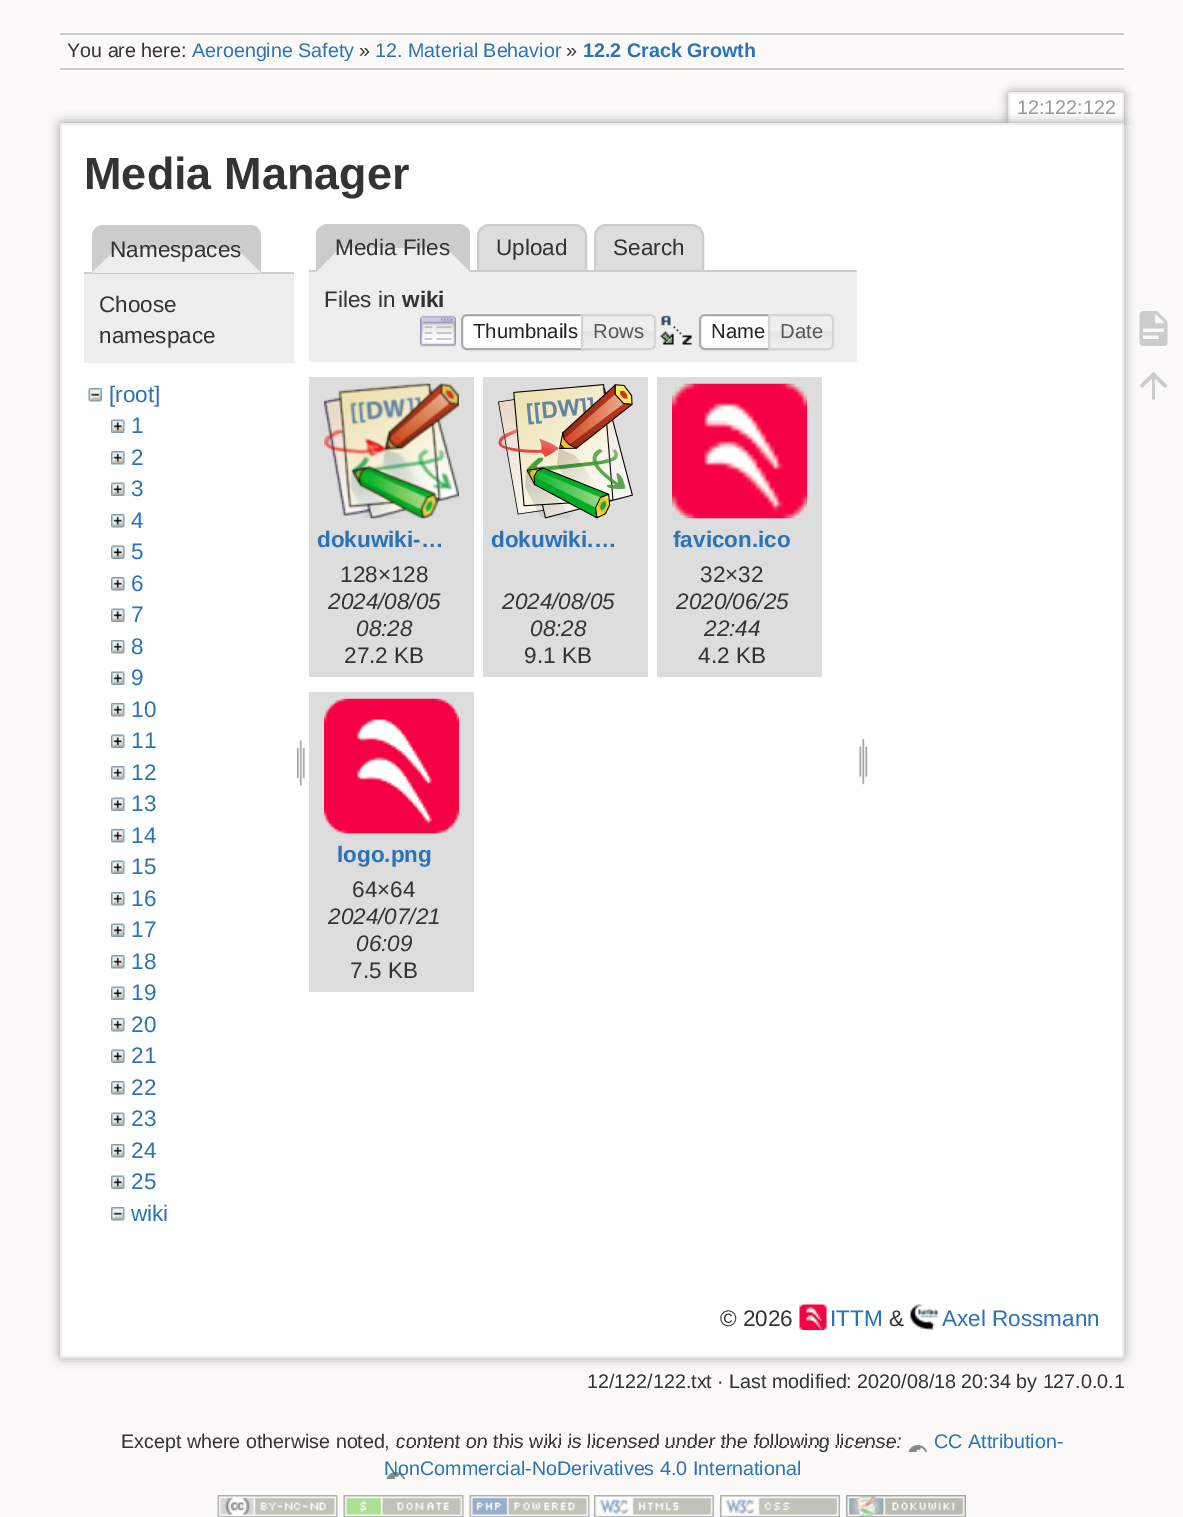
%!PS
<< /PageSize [1183 1517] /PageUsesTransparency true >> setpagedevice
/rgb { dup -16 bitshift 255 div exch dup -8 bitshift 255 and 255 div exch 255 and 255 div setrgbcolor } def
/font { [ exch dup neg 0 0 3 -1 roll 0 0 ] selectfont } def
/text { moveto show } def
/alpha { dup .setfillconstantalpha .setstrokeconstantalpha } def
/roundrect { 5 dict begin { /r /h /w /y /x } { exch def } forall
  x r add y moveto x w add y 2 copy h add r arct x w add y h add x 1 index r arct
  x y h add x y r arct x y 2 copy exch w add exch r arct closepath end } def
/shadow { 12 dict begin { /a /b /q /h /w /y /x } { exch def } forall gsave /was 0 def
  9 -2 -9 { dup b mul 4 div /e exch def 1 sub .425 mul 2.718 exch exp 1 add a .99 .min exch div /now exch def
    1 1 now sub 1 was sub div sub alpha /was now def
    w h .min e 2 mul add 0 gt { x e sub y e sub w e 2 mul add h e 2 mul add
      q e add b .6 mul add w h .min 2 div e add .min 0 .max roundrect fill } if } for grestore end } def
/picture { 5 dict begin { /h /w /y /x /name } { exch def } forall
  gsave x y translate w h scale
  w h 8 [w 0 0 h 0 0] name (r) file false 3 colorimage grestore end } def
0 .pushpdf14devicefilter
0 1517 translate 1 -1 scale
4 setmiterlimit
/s1 { /LiberationSans-Regular 19.7 font 16#333333 rgb } def
/s2 { /LiberationSans-Regular 19.7 font 16#2B73B7 rgb } def
/s3 { /LiberationSans-Bold 19.7 font 16#2B73B7 rgb } def
/s4 { /LiberationSans-Regular 19.7 font 16#999999 rgb } def
/s5 { /LiberationSans-Bold 45 font 16#333333 rgb } def
/s6 { /LiberationSans-Regular 22.5 font 16#333333 rgb } def
/s7 { /LiberationSans-Regular 22.5 font 16#2B73B7 rgb } def
/s8 { /LiberationSans-Bold 22.5 font 16#333333 rgb } def
/s9 { /LiberationSans-Regular 20.25 font 16#212121 rgb } def
/s10 { /LiberationSans-Regular 20.25 font 16#555555 rgb } def
/s11 { /LiberationSans-Bold 22.5 font 16#2B73B7 rgb } def
/s12 { /LiberationSans-Italic 22.5 font 16#333333 rgb } def
16#FBFAF9 rgb
0 0 1183 1517 rectfill
16#CCCCCC rgb
60 33 1064 2 rectfill
16#FFFFFF rgb
60 70 1064 1 rectfill
60 35 1064 2 rectfill
16#CCCCCC rgb
60 68 1064 2 rectfill
s1
(You are here:) 67 57 text
s2
(Aeroengine Safety) 192 57 text
s1
(») 359 57 text
s2
(12. Material Behavior) 375 57 text
s1
(») 566 57 text
s3
(12.2 Crack Growth) 583 57 text
gsave
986 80 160 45 rectclip
16#999999 rgb
1008 92 116 33 3 5 1 shadow
grestore
16#FFFFFF rgb
1010 94 112 30 rectfill
16#EEEEEE rgb
1010 92 112 2 rectfill
1122 93 2 32 rectfill
1008 93 2 32 rectfill
s4
(12:122:122) 1017 114 text
60 123 1064 1235 3 5.5 1 shadow
16#FFFFFF rgb
61 124 1062 1233 2 roundrect gsave fill grestore
16#EEEEEE rgb
2 setlinewidth
stroke
s5
(Media Manager) 84 189 text
16#CCCCCC rgb
84 272 210 2 rectfill
16#EEEEEE rgb
104 225 moveto 249 225 lineto 255.5 225 261 230.5 261 237 curveto 261 273 lineto 92 273 lineto 92 237 lineto 92 230.5 97.5 225 104 225 curveto closepath fill
16#CCCCCC rgb
103 225 moveto 250 225 lineto 253 225 256 226 258 228 curveto 237 249 lineto 116 249 lineto 95 229 lineto 97 226 100 225 103 225 curveto closepath fill
258 228 moveto 237 249 lineto 261 273 lineto 261 236 lineto 261 233 260 230 258 228 curveto closepath fill
16#EEEEEE rgb
261 273 moveto 92 273 lineto 116 249 lineto 237 249 lineto closepath fill
16#CCCCCC rgb
95 229 moveto 93 230 92 233 92 236 curveto 92 272 lineto 116 249 lineto closepath fill
s6
(Namespaces) 110 257 text
16#EEEEEE rgb
84 274 210 89 rectfill
s6
(Choose) 99 312 text
(namespace) 99 343 text
(pic1.raw) 88 388 14 14 picture
s7
([root]) 109 402 text
(pic2.raw) 111 419 14 14 picture
(1) 131 433 text
(pic3.raw) 111 451 14 14 picture
(2) 131 465 text
(pic2.raw) 111 482 14 14 picture
(3) 131 496 text
(pic3.raw) 111 514 14 14 picture
(4) 131 528 text
(pic2.raw) 111 545 14 14 picture
(5) 131 559 text
(pic3.raw) 111 577 14 14 picture
(6) 131 591 text
(pic2.raw) 111 608 14 14 picture
(7) 131 622 text
(pic3.raw) 111 640 14 14 picture
(8) 131 654 text
(pic2.raw) 111 671 14 14 picture
(9) 131 685 text
(pic3.raw) 111 703 14 14 picture
(10) 131 717 text
(pic2.raw) 111 734 14 14 picture
(11) 131 748 text
(pic3.raw) 111 766 14 14 picture
(12) 131 780 text
(pic2.raw) 111 797 14 14 picture
(13) 131 811 text
(pic3.raw) 111 829 14 14 picture
(14) 131 843 text
(pic2.raw) 111 860 14 14 picture
(15) 131 874 text
(pic3.raw) 111 892 14 14 picture
(16) 131 906 text
(pic2.raw) 111 923 14 14 picture
(17) 131 937 text
(pic3.raw) 111 955 14 14 picture
(18) 131 969 text
(pic2.raw) 111 986 14 14 picture
(19) 131 1000 text
(pic3.raw) 111 1018 14 14 picture
(20) 131 1032 text
(pic2.raw) 111 1049 14 14 picture
(21) 131 1063 text
(pic3.raw) 111 1081 14 14 picture
(22) 131 1095 text
(pic2.raw) 111 1112 14 14 picture
(23) 131 1126 text
(pic3.raw) 111 1144 14 14 picture
(24) 131 1158 text
(pic2.raw) 111 1175 14 14 picture
(25) 131 1189 text
(pic4.raw) 111 1207 14 14 picture
(wiki) 131 1221 text
(pic5.raw) 297 739 8 47 picture
16#CCCCCC rgb
328 224 moveto 325 224 322 225 320 227 curveto 340 248 lineto 446 248 lineto 466 227 lineto 464 225 461 224 458 224 curveto closepath fill
16#DDDDDD rgb
489 225 moveto 575 225 lineto 581 225 586 230 586 236 curveto 586 271 lineto 478 271 lineto 478 236 lineto 478 230 483 225 489 225 curveto closepath gsave fill grestore
16#CCCCCC rgb
stroke
16#DDDDDD rgb
606 225 moveto 692 225 lineto 698 225 703 230 703 236 curveto 703 271 lineto 595 271 lineto 595 236 lineto 595 230 600 225 606 225 curveto closepath gsave fill grestore
16#CCCCCC rgb
stroke
309 270 548 2 rectfill
470 232 moveto 469 230 468 228 466 227 curveto 446 248 lineto 470 272 lineto closepath fill
16#EEEEEE rgb
470 272 moveto 446 248 lineto 340 248 lineto 316 272 lineto closepath fill
16#CCCCCC rgb
316 272 moveto 340 248 lineto 320 227 lineto 318 228 317 230 316 232 curveto closepath fill
s6
(Media Files) 335 255 text
(Upload) 496 255 text
(Search) 613 255 text
16#EEEEEE rgb
309 272 548 90 rectfill
s6
(Files in) 324 307 text
s8
(wiki) 402 307 text
(pic6.raw) 420 315 36 32 picture
16#FFFFFF rgb
467 314 moveto 590 314 lineto 590 350 lineto 467 350 lineto 463.5 350 461 347.5 461 344 curveto 461 320 lineto 461 316.5 463.5 314 467 314 curveto closepath fill
(pic7.raw) 460 313 121 30 picture
16#AAAAAA rgb
467 315 moveto 589 315 lineto 589 349 lineto 467 349 lineto 464 349 462 347 462 344 curveto 462 320 lineto 462 317 464 315 467 315 curveto closepath stroke
s9
(Thumbnails) 473 338 text
(pic8.raw) 580 313 75 36 picture
16#D3D3D3 rgb
582 315 moveto 650 315 lineto 653 315 655 317 655 320 curveto 655 344 lineto 655 347 653 349 650 349 curveto 582 349 lineto closepath stroke
s10
(Rows) 593 338 text
(pic9.raw) 659 315 33 30 picture
16#FFFFFF rgb
705 314 moveto 777 314 lineto 777 350 lineto 705 350 lineto 701.5 350 699 347.5 699 344 curveto 699 320 lineto 699 316.5 701.5 314 705 314 curveto closepath fill
(pic10.raw) 699 313 69 5 picture
16#AAAAAA rgb
705 315 moveto 776 315 lineto 776 349 lineto 705 349 lineto 702 349 700 347 700 344 curveto 700 320 lineto 700 317 702 315 705 315 curveto closepath stroke
s9
(Name) 711 338 text
(pic11.raw) 768 313 66 35 picture
16#D3D3D3 rgb
769 315 moveto 828 315 lineto 831 315 833 317 833 320 curveto 833 344 lineto 833 347 831 349 828 349 curveto 769 349 lineto closepath stroke
s10
(Date) 780 338 text
16#DDDDDD rgb
309 377 165 300 rectfill
(pic12.raw) 324 383 135 136 picture
s11
(dokuwiki-…) 317 547 text
s6
(128×128) 340 582 text
s12
(2024/08/05) 328 609 text
(08:28) 356 636 text
s6
(27.2 KB) 344 663 text
16#DDDDDD rgb
483 377 165 300 rectfill
(pic13.raw) 498 384 135 135 picture
s11
(dokuwiki.…) 491 547 text
s12
(2024/08/05) 502 609 text
(08:28) 530 636 text
s6
(9.1 KB) 524 663 text
16#DDDDDD rgb
657 377 165 300 rectfill
(pic14.raw) 672 383 135 136 picture
s11
(favicon.ico) 673 547 text
s6
(32×32) 700 582 text
s12
(2020/06/25) 676 609 text
(22:44) 704 636 text
s6
(4.2 KB) 698 663 text
16#DDDDDD rgb
309 692 165 300 rectfill
(pic15.raw) 324 698 135 136 picture
s11
(logo.png) 337 862 text
s6
(64×64) 352 897 text
s12
(2024/07/21) 328 924 text
(06:09) 356 951 text
s6
(7.5 KB) 350 978 text
(pic16.raw) 859 737 9 48 picture
(© 2026) 720 1326 text
(pic17.raw) 799 1304 28 26 picture
s7
(ITTM) 830 1326 text
s6
(&) 889 1326 text
(pic18.raw) 910 1304 28 26 picture
s7
(Axel Rossmann) 942 1326 text
s1
(12/122/122.txt · Last modified: 2020/08/18 20:34 by 127.0.0.1) 587 1388 text
(pic19.raw) 1139 311 29 35 picture
16#CCCCCC rgb
1155 399.5 moveto 1152 399.5 lineto 1152 378.5 lineto 1142 388 lineto 1139.5 385.5 lineto 1153.5 372 lineto 1167.5 385.5 lineto 1165 388 lineto 1155 378.5 lineto closepath fill
s1
(Except where otherwise noted, content on this wiki is licensed under the following license:) 121 1448 text
s2
(CC Attribution-) 934 1448 text
(pic20.raw) 386 1445 542 34 picture
(NonCommercial-NoDerivatives 4.0 International) 384 1475 text
(pic21.raw) 217 1495 121 22 picture
(pic22.raw) 343 1495 121 22 picture
(pic23.raw) 469 1495 121 22 picture
(pic24.raw) 594 1495 120 22 picture
(pic25.raw) 720 1495 120 22 picture
(pic26.raw) 846 1495 120 22 picture
.poppdf14devicefilter showpage
